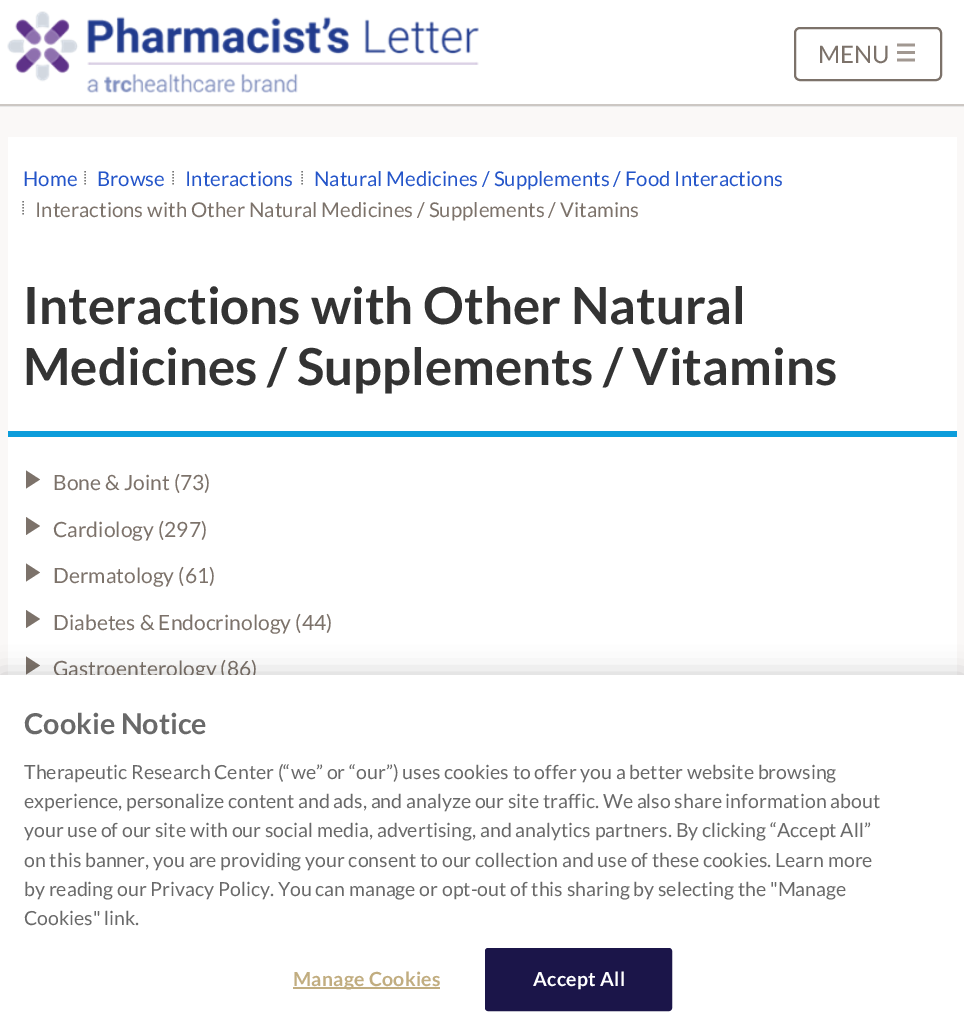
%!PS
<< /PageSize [964 1025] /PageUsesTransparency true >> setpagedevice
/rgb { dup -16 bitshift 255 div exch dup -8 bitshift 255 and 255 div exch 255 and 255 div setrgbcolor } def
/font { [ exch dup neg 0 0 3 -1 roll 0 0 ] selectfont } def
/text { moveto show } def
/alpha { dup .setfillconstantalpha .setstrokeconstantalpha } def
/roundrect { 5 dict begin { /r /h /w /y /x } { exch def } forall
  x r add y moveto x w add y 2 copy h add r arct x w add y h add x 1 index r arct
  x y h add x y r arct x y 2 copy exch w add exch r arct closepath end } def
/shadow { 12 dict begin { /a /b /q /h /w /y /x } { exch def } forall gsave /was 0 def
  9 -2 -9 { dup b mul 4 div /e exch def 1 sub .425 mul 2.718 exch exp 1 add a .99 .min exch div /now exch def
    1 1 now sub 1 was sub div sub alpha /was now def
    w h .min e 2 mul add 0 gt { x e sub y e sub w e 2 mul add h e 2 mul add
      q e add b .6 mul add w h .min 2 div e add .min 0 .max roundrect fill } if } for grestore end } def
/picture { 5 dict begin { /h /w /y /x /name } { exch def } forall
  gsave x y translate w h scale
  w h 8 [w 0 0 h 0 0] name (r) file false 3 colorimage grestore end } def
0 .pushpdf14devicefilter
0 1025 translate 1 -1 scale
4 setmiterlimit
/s1 { /Lato-Regular 24 font 16#7C726A rgb } def
/s2 { /Lato-Regular 20.4 font 16#2455C9 rgb } def
/s3 { /Lato-Regular 20.4 font 16#7C726A rgb } def
/s4 { /Lato-Bold 51 font 16#333333 rgb } def
/s5 { /Lato-Regular 21 font 16#7C726A rgb } def
/s6 { /Lato-Bold 28.75 font 16#696969 rgb } def
/s7 { /Lato-Regular 19.5 font 16#696969 rgb } def
16#FAF8F7 rgb
0 0 964 1025 rectfill
16#FFFFFF rgb
0 0 964 104 rectfill
16#E6E6E6 rgb
0 106 964 1 rectfill
(pic1.raw) 7 11 472 82 picture
16#7C726A rgb
2 setlinewidth
795 28 146 52 5 roundrect stroke
s1
(MENU) 818 63 text
(pic2.raw) 897 43 18 19 picture
16#CCC7C3 rgb
0 104 964 2 rectfill
16#FFFFFF rgb
8 137 949 294 rectfill
16#0D9DDB rgb
8 431 949 6 rectfill
s2
(Home) 23 186 text
16#777777 rgb
1.5 setlinewidth
[1.5 1.5] 0 setdash
85 171 moveto 85 186 lineto stroke
s2
(Browse) 97 186 text
16#777777 rgb
173 171 moveto 173 186 lineto stroke
s2
(Interactions) 185 186 text
16#777777 rgb
302 171 moveto 302 186 lineto stroke
s2
(Natural Medicines / Supplements / Food Interactions) 314 186 text
16#777777 rgb
23 201 moveto 23 216 lineto stroke
s3
(Interactions with Other Natural Medicines / Supplements / Vitamins) 35 217 text
s4
(Interactions with Other Natural) 23 324 text
(Medicines / Supplements / Vitamins) 23 385 text
16#FFFFFF rgb
8 437 949 238 rectfill
16#7C726A rgb
26 488.5 moveto 26 470.5 lineto 40 479.5 lineto closepath fill
s5
(Bone & Joint \(73\)) 53 490 text
26 535 moveto 26 517 lineto 40 526 lineto closepath fill
(Cardiology \(297\)) 53 537 text
26 581.5 moveto 26 563.5 lineto 40 572.5 lineto closepath fill
(Dermatology \(61\)) 53 583 text
26 628 moveto 26 610 lineto 40 619 lineto closepath fill
(Diabetes & Endocrinology \(44\)) 53 630 text
26 674.5 moveto 26 656.5 lineto 40 665.5 lineto closepath fill
(Gastroenterology \(86\)) 53 676 text
16#000000 rgb
0 675 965 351 0 13.5 0.2 shadow
16#FFFFFF rgb
0 675 964 350 rectfill
s6
(Cookie Notice) 24 734 text
s7
(Therapeutic Research Center \(“we” or “our”\) uses cookies to offer you a better website browsing) 24 779 text
(experience, personalize content and ads, and analyze our site traffic. We also share information about) 24 808 text
(your use of our site with our social media, advertising, and analytics partners. By clicking “Accept All”) 24 837 text
(on this banner, you are providing your consent to our collection and use of these cookies. Learn more) 24 867 text
(by reading our Privacy Policy. You can manage or opt-out of this sharing by selecting the "Manage) 24 896 text
(Cookies" link.) 24 925 text
16#C1AD80 rgb
293 987 147 2 rectfill
/Lato-Bold 19.5 font
293 986 moveto 0.25 0 (Manage Cookies) ashow
16#1B1549 rgb
486 949 185 61 2 roundrect gsave fill grestore
2 setlinewidth
[] 0 setdash
stroke
16#FFFFFF rgb
533 986 moveto 0.25 0 (Accept All) ashow
.poppdf14devicefilter showpage
